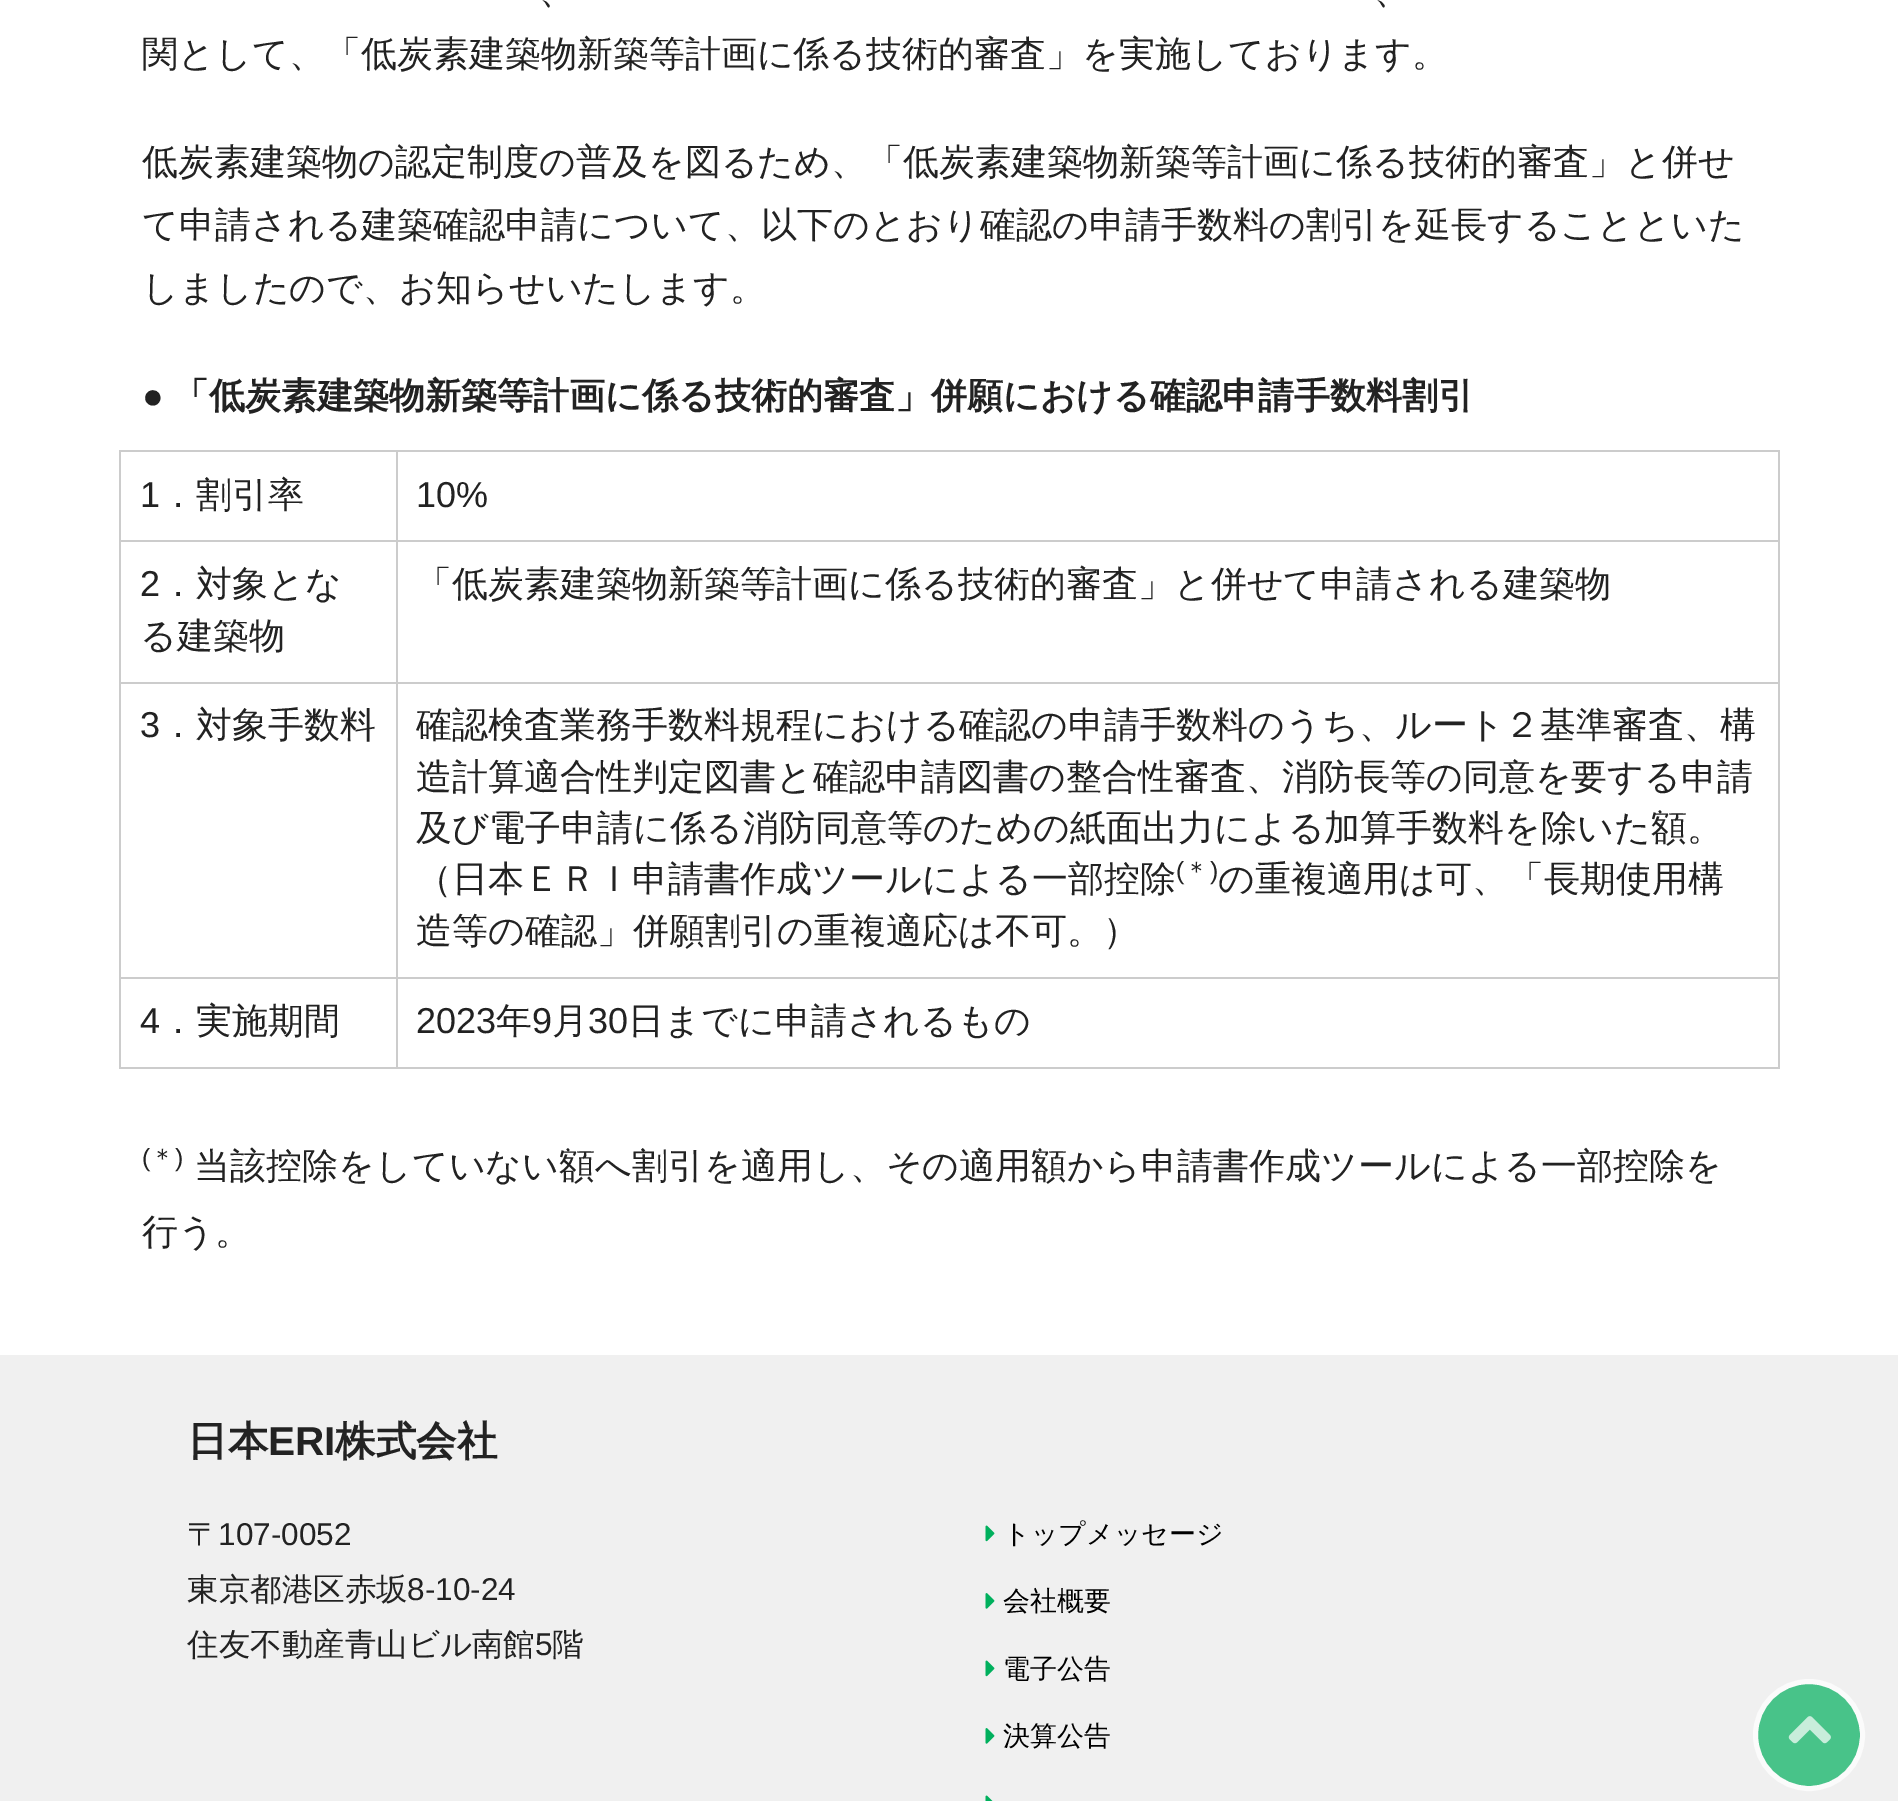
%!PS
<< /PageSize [1898 1801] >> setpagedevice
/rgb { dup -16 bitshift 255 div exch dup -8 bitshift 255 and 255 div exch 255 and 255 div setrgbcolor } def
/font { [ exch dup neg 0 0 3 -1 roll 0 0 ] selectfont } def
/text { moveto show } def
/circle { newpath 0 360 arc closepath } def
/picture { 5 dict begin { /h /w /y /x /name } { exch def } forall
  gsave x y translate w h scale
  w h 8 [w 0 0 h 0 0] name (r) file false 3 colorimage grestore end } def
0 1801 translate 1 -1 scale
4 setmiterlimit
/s1 { /WenQuanYiZenHei-Medium 36 font 16#222222 rgb } def
/s2 { /LiberationSans-Bold 36 font 16#222222 rgb } def
/s3 { /WenQuanYiZenHei-Bold 36 font 16#222222 rgb } def
/s4 { /LiberationSans-Regular 36 font 16#222222 rgb } def
/s5 { /LiberationSans-Regular 25 font 16#222222 rgb } def
/s6 { /WenQuanYiZenHei-Medium 25 font 16#222222 rgb } def
/s7 { /WenQuanYiZenHei-Bold 40.5 font 16#222222 rgb } def
/s8 { /LiberationSans-Bold 40.5 font 16#222222 rgb } def
/s9 { /WenQuanYiZenHei-Medium 31.5 font 16#222222 rgb } def
/s10 { /LiberationSans-Regular 31.5 font 16#222222 rgb } def
/s11 { /WenQuanYiZenHei-Medium 27 font 16#000000 rgb } def
16#FFFFFF rgb
0 0 1898 1801 rectfill
s1
(、) 539 3 text
(、) 1374 3 text
(関として、「低炭素建築物新築等計画に係る技術的審査」を実施しております。) 142 66 text
(低炭素建築物の認定制度の普及を図るため、「低炭素建築物新築等計画に係る技術的審査」と併せ) 142 174 text
(て申請される建築確認申請について、以下のとおり確認の申請手数料の割引を延長することといた) 142 237 text
(しましたので、お知らせいたします。) 142 300 text
s2
(●) 142 408 text
s3
(「低炭素建築物新築等計画に係る技術的審査」併願における確認申請手数料割引) 173 408 text
16#CCCCCC rgb
119 450 1661 2 rectfill
1778 450 2 619 rectfill
119 1067 1661 2 rectfill
s4
(1) 140 507 text
s1
(．割引率) 160 507 text
16#CCCCCC rgb
396 540 1384 2 rectfill
396 682 1384 2 rectfill
396 977 1384 2 rectfill
396 977 2 92 rectfill
119 977 279 2 rectfill
396 682 2 297 rectfill
119 682 279 2 rectfill
396 540 2 144 rectfill
119 540 279 2 rectfill
396 450 2 92 rectfill
s4
(10%) 416 507 text
16#CCCCCC rgb
119 977 2 92 rectfill
119 682 2 297 rectfill
119 450 2 234 rectfill
s4
(2) 140 596 text
s1
(．対象とな) 160 596 text
(る建築物) 140 648 text
(「低炭素建築物新築等計画に係る技術的審査」と併せて申請される建築物) 416 596 text
s4
(3) 140 737 text
s1
(．対象手数料) 160 737 text
(確認検査業務手数料規程における確認の申請手数料のうち、ルート２基準審査、構) 416 737 text
(造計算適合性判定図書と確認申請図書の整合性審査、消防長等の同意を要する申請) 416 789 text
(及び電子申請に係る消防同意等のための紙面出力による加算手数料を除いた額。) 416 840 text
(（日本ＥＲＩ申請書作成ツールによる一部控除) 416 891 text
s5
(\() 1176 879 text
s6
(＊) 1184 879 text
s5
(\)) 1210 879 text
s1
(の重複適用は可、「長期使用構) 1218 891 text
(造等の確認」併願割引の重複適応は不可。）) 416 943 text
s4
(4) 140 1033 text
s1
(．実施期間) 160 1033 text
s4
(2023) 416 1033 text
s1
(年) 496 1033 text
s4
(9) 532 1033 text
s1
(月) 552 1033 text
s4
(30) 588 1033 text
s1
(日までに申請されるもの) 628 1033 text
s5
(\() 142 1166 text
s6
(＊) 150 1166 text
s5
(\)) 175 1166 text
s1
(当該控除をしていない額へ割引を適用し、その適用額から申請書作成ツールによる一部控除を) 194 1178 text
(行う。) 142 1244 text
16#F0F0F0 rgb
0 1355 1898 446 rectfill
s7
(日本) 187 1455 text
s8
(ERI) 268 1455 text
s7
(株式会社) 335 1455 text
s9
(〒) 187 1545 text
s10
(107-0052) 218 1545 text
s9
(東京都港区赤坂) 187 1600 text
s10
(8-10-24) 407 1600 text
s9
(住友不動産青山ビル南館) 187 1655 text
s10
(5) 535 1655 text
s9
(階) 552 1655 text
(pic1.raw) 985 1525 10 17 picture
s11
(トップメッセージ) 1003 1543 text
(pic2.raw) 985 1593 10 16 picture
(会社概要) 1003 1610 text
(pic1.raw) 985 1660 10 17 picture
(電子公告) 1003 1678 text
(pic2.raw) 985 1728 10 16 picture
(決算公告) 1003 1745 text
(pic3.raw) 985 1795 8 6 picture
16#48C389 rgb
1809 1735 53.5 circle gsave fill grestore
16#FBFBFB rgb
5 setlinewidth
stroke
(pic4.raw) 1788 1716 43 28 picture
showpage
